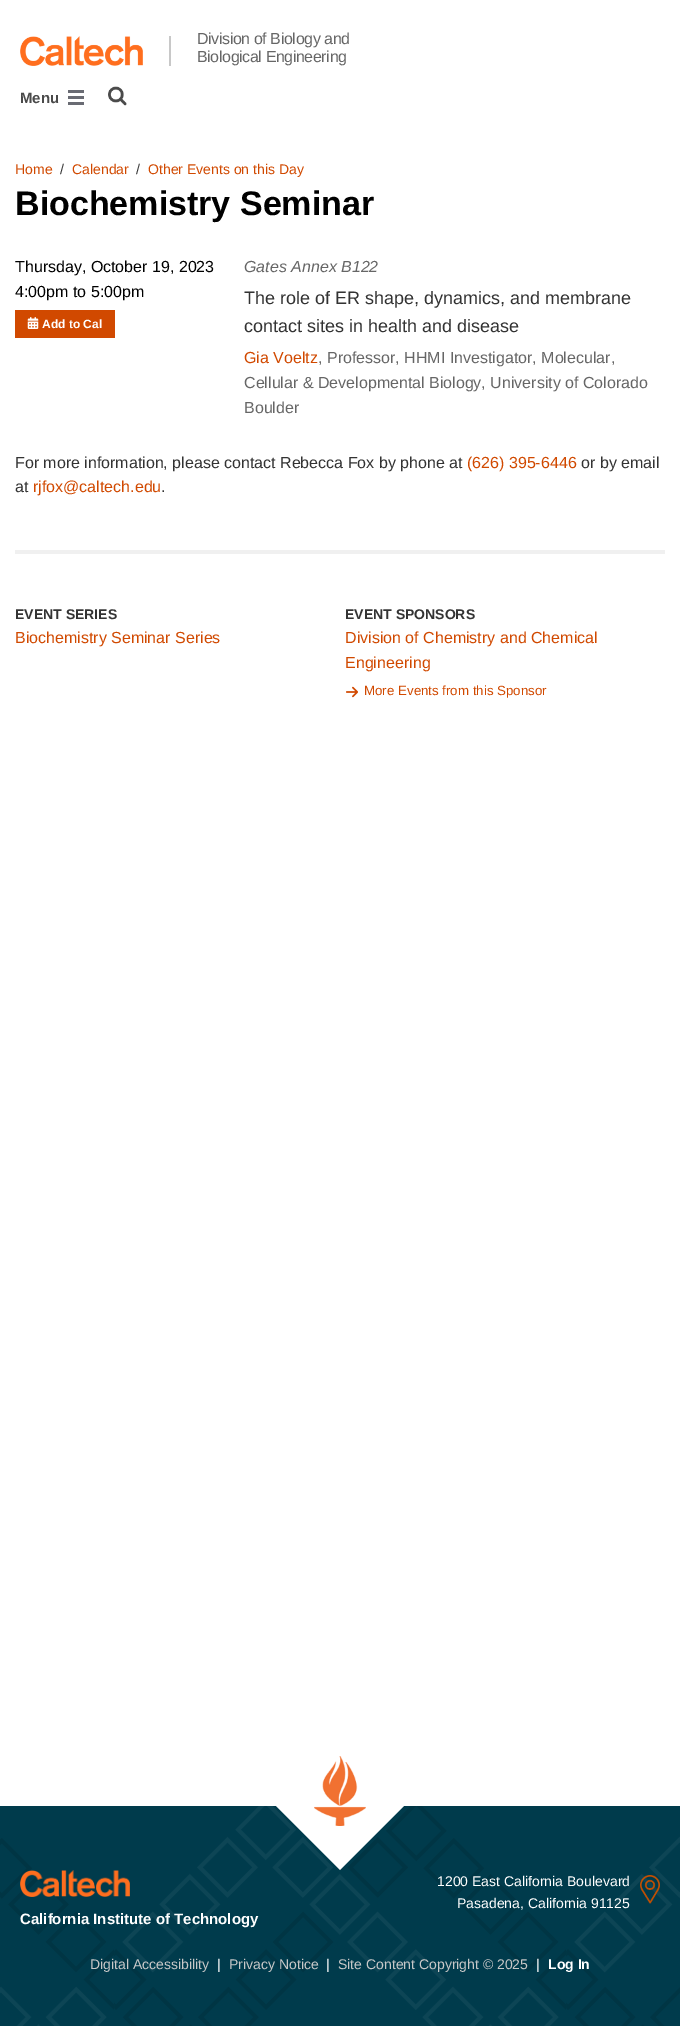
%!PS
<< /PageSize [680 2026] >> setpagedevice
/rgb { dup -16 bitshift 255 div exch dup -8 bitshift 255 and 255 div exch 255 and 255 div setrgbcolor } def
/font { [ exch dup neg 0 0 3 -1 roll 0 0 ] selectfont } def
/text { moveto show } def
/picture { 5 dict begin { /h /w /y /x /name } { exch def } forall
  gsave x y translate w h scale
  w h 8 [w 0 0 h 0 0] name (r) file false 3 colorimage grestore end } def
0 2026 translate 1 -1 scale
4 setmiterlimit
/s1 { /LiberationSans-Bold 15 font 16#4A4A4A rgb } def
/s2 { /LiberationSans-Regular 14 font 16#D14900 rgb } def
/s3 { /LiberationSans-Regular 14 font 16#333333 rgb } def
/s4 { /LiberationSans-Bold 34 font 16#000000 rgb } def
/s5 { /LiberationSans-Regular 16 font 16#000000 rgb } def
/s6 { /LiberationSans-Bold 12 font 16#FFFFFF rgb } def
/s7 { /LiberationSans-Italic 16 font 16#666666 rgb } def
/s8 { /LiberationSans-Regular 18 font 16#333333 rgb } def
/s9 { /LiberationSans-Regular 16 font 16#D14900 rgb } def
/s10 { /LiberationSans-Regular 16 font 16#666666 rgb } def
/s11 { /LiberationSans-Regular 16 font 16#333333 rgb } def
/s12 { /LiberationSans-Bold 14 font 16#333333 rgb } def
/s13 { /LiberationSans-Regular 13.3 font 16#D14900 rgb } def
/s14 { /LiberationSans-Regular 14 font 16#FFFFFF rgb } def
/s15 { /LiberationSans-Bold 15 font 16#FFFFFF rgb } def
/s16 { /LiberationSans-Regular 14 font 16#C8C8C8 rgb } def
/s17 { /LiberationSans-Bold 14 font 16#FFFFFF rgb } def
16#FFFFFF rgb
0 0 680 2026 rectfill
(pic1.raw) 20 36 123 30 picture
16#C8C8C8 rgb
169 36 2 30 rectfill
/LiberationSans-Regular 16 font
16#666666 rgb
197 44 moveto -0.4 0 (Division of Biology and) ashow
197 62 moveto -0.4 0 (Biological Engineering) ashow
s1
(Menu) 20 103 text
(pic2.raw) 68 90 16 15 picture
(pic3.raw) 108 86 19 20 picture
s2
(Home) 15 174 text
s3
(/) 60 174 text
s2
(Calendar) 72 174 text
s3
(/) 136 174 text
s2
(Other Events on this Day) 148 174 text
s4
(Biochemistry Seminar) 15 215 text
s5
(Thursday, October 19, 2023) 15 272 text
(4:00pm to 5:00pm) 15 297 text
16#D14900 rgb
15 310 100 28 rectfill
(pic4.raw) 27 317 12 12 picture
s6
(Add to Cal) 42 328 text
s7
(Gates Annex B122) 244 272 text
s8
(The role of ER shape, dynamics, and membrane) 244 304 text
(contact sites in health and disease) 244 332 text
s9
(Gia Voeltz) 244 363 text
s10
(, Professor, HHMI Investigator, Molecular,) 318 363 text
(Cellular & Developmental Biology, University of Colorado) 244 388 text
(Boulder) 244 413 text
s11
(For more information, please contact Rebecca Fox by phone at) 15 468 text
s9
(\(626\) 395-6446) 467 468 text
s11
(or by email) 581 468 text
(at) 15 492 text
s9
(rjfox@caltech.edu) 33 492 text
s11
(.) 161 492 text
16#F0F0F0 rgb
15 550 650 4 rectfill
s12
(EVENT SERIES) 15 619 text
s9
(Biochemistry Seminar Series) 15 643 text
s12
(EVENT SPONSORS) 345 619 text
s9
(Division of Chemistry and Chemical) 345 643 text
(Engineering) 345 668 text
(pic5.raw) 346 686 12 12 picture
s13
(More Events from this Sponsor) 364 695 text
16#003B4C rgb
0 1806 680 220 rectfill
(pic6.raw) 0 1806 680 220 picture
16#FFFFFF rgb
340 1742 moveto 404 1806 lineto 340 1870 lineto 276 1806 lineto closepath fill
(pic7.raw) 314 1756 52 70 picture
s14
(1200 East California Boulevard) 437 1886 text
(pic8.raw) 640 1875 20 29 picture
(Pasadena, California 91125) 457 1908 text
(pic9.raw) 20 1870 110 27 picture
s15
(California Institute of Technology) 20 1924 text
s16
(Digital Accessibility) 90 1969 text
s14
(|) 217 1969 text
s16
(Privacy Notice) 229 1969 text
s14
(|) 326 1969 text
s16
(Site Content Copyright © 2025) 338 1969 text
s14
(|) 536 1969 text
s17
(Log In) 548 1969 text
showpage
